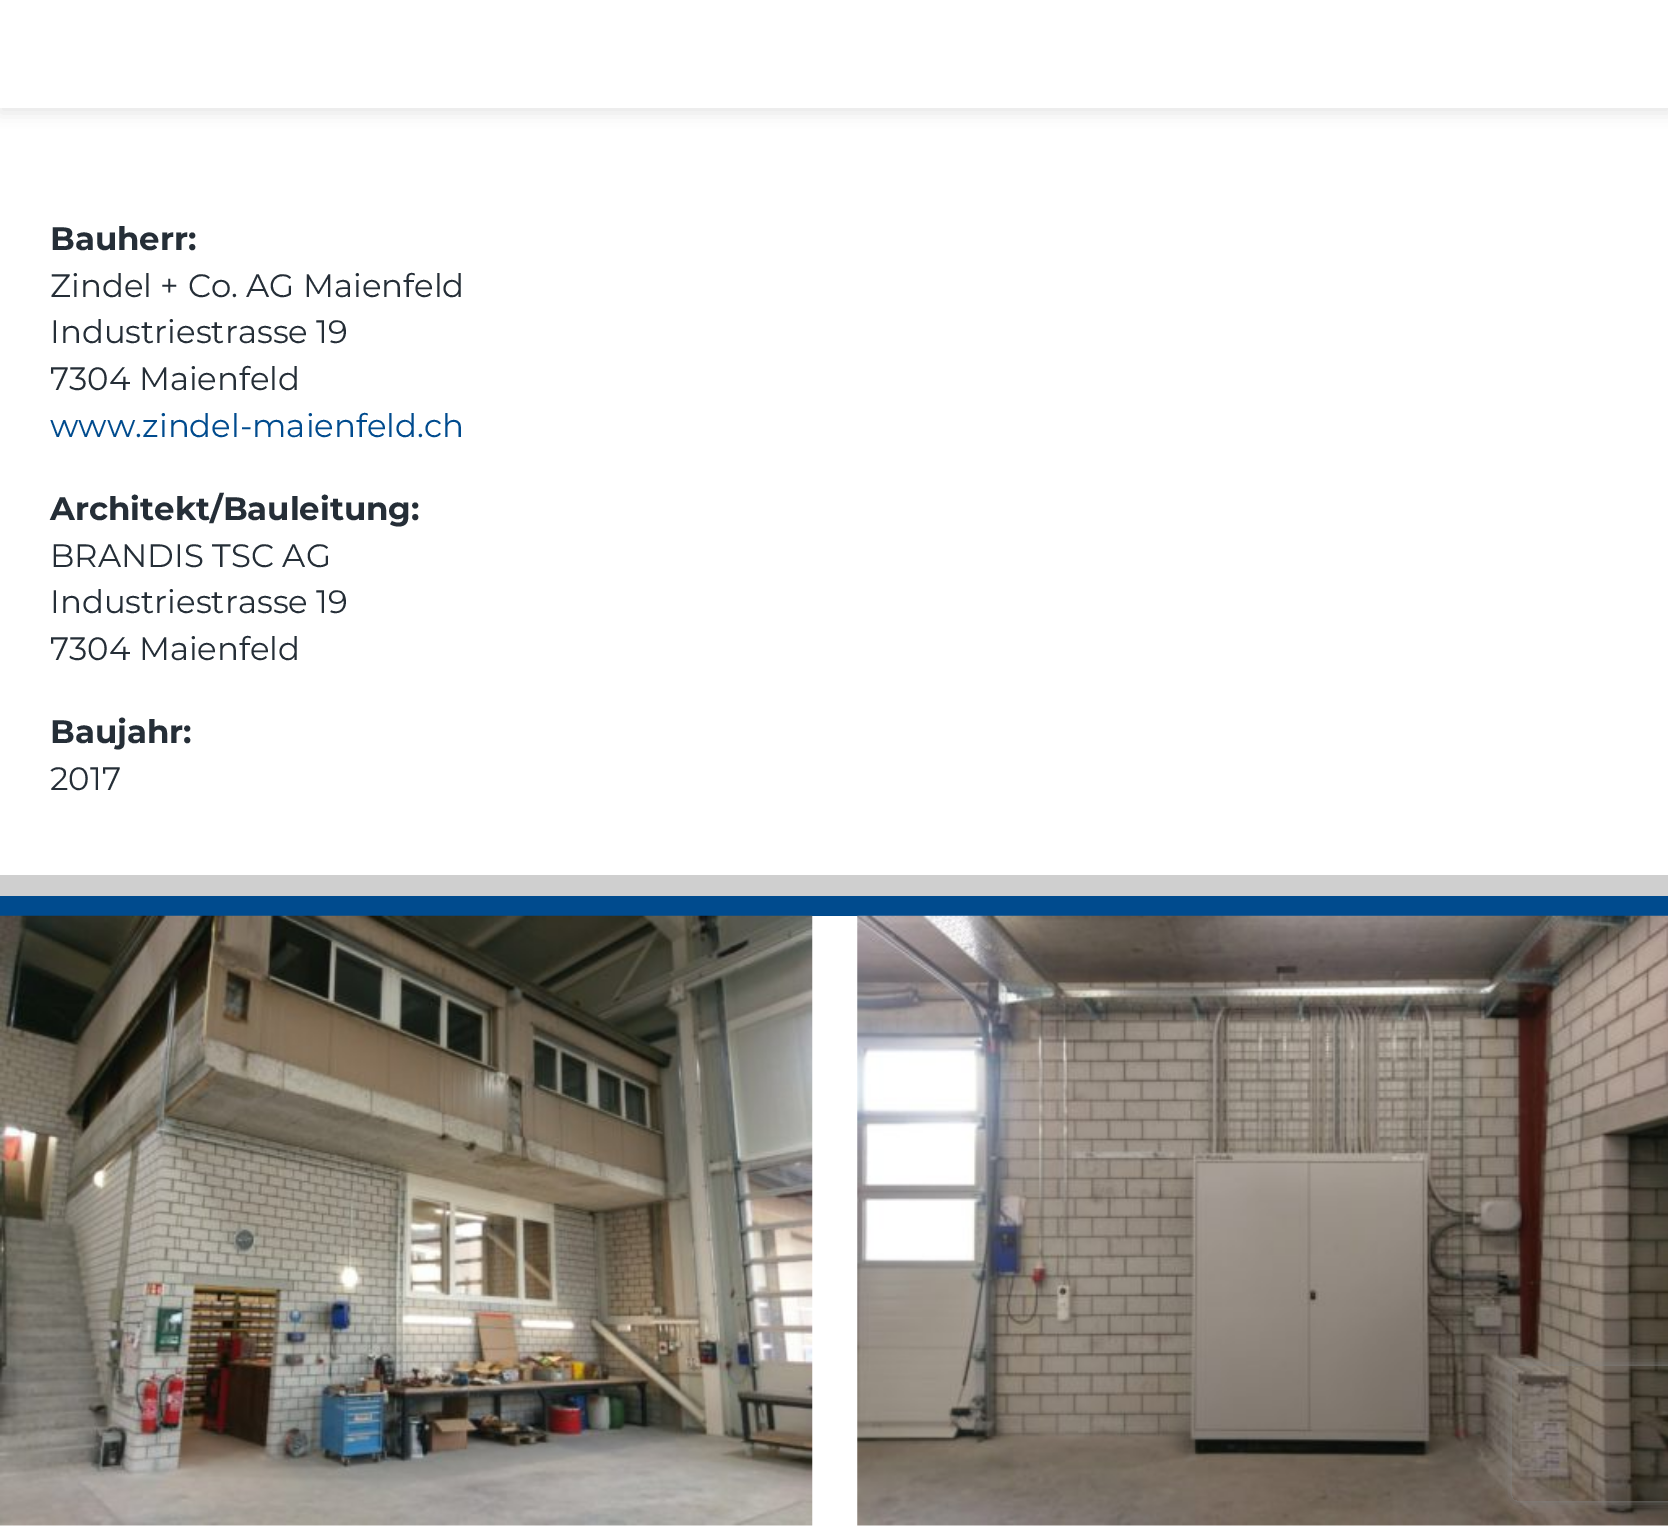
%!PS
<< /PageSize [1668 1531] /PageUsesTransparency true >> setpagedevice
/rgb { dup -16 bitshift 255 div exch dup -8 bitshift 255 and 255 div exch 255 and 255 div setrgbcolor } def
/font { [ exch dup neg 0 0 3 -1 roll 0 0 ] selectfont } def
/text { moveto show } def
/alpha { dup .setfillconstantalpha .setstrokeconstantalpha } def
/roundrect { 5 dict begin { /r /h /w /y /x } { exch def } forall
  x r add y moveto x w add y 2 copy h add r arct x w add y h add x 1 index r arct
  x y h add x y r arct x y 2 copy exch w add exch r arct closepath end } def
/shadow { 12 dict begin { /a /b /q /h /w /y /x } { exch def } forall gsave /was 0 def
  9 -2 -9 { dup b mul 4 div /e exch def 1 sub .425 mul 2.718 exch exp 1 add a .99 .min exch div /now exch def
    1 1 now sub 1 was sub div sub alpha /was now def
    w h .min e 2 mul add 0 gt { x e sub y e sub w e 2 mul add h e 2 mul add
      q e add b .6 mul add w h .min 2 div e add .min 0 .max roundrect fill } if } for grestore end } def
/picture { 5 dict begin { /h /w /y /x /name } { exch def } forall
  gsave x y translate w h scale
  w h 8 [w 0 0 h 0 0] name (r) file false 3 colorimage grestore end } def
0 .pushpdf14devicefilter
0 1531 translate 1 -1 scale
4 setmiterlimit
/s1 { /Montserrat-Bold 32.4 font 16#252E37 rgb } def
/s2 { /Montserrat-Regular 32.4 font 16#252E37 rgb } def
/s3 { /Montserrat-Regular 32.4 font 16#004B8E rgb } def
16#FFFFFF rgb
0 0 1668 1531 rectfill
gsave
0 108 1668 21 rectclip
16#E6E6E6 rgb
0 5 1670 108 0 8 1 shadow
grestore
16#004B8E rgb
0 896 1668 20 rectfill
s1
(Bauherr:) 50 250 text
s2
(Zindel + Co. AG Maienfeld) 50 297 text
(Industriestrasse 19) 50 343 text
(7304 Maienfeld) 50 390 text
s3
(www.zindel-maienfeld.ch) 50 437 text
s1
(Architekt/Bauleitung:) 50 520 text
s2
(BRANDIS TSC AG) 50 567 text
(Industriestrasse 19) 50 613 text
(7304 Maienfeld) 50 660 text
s1
(Baujahr:) 50 743 text
s2
(2017) 50 790 text
16#CFCFCF rgb
0 875 1668 21 rectfill
(pic1.raw) 0 915 813 611 picture
(pic2.raw) 857 915 811 611 picture
gsave
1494 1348 moveto 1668 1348 lineto 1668 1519 lineto 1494 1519 lineto closepath 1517 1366 moveto 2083 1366 lineto 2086 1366 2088 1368 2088 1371 curveto 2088 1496 lineto 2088 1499 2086 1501 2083 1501 curveto 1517 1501 lineto 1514 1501 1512 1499 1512 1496 curveto 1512 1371 lineto 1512 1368 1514 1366 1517 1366 curveto closepath eoclip newpath
16#808080 rgb
1512 1366 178 135 5 5.5 1 shadow
grestore
.poppdf14devicefilter showpage
